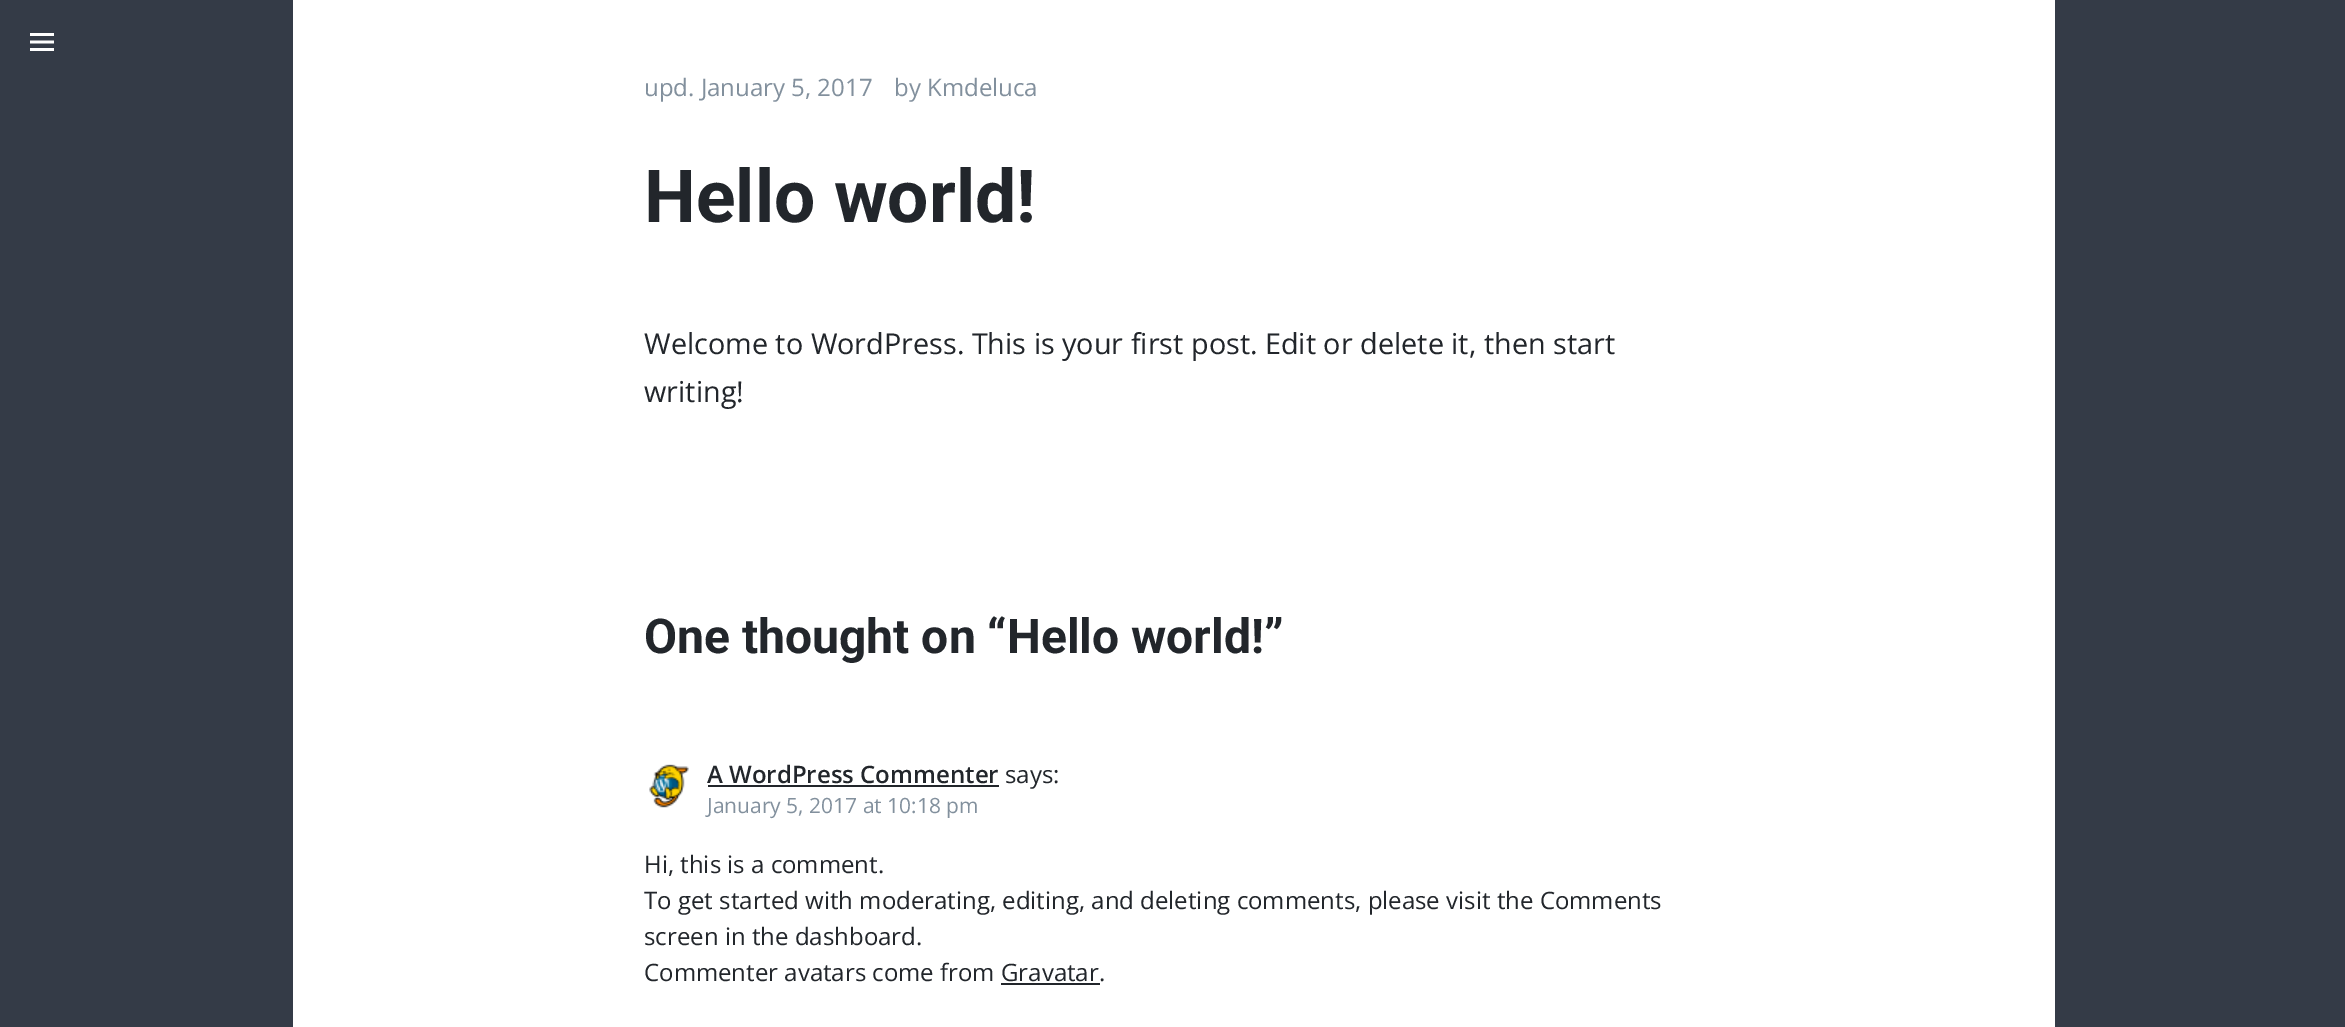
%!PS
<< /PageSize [2345 1027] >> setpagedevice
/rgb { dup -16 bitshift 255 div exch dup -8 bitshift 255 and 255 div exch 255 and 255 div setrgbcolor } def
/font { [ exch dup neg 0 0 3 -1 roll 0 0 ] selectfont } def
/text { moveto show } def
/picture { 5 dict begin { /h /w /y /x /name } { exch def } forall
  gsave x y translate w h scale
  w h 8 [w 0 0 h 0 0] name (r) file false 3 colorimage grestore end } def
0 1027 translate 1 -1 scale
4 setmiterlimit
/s1 { /OpenSans-Regular 24 font 16#82909D rgb } def
/s2 { /Roboto-Bold 73.25 font 16#22262B rgb } def
/s3 { /OpenSans-Regular 28.8 font 16#22262B rgb } def
/s4 { /Roboto-Bold 48 font 16#22262B rgb } def
/s5 { /OpenSans-SemiBold 24 font 16#22262B rgb } def
/s6 { /OpenSans-Regular 24 font 16#22262B rgb } def
/s7 { /OpenSans-Regular 21 font 16#82909D rgb } def
16#343B47 rgb
0 0 2345 1027 rectfill
(pic1.raw) 30 33 24 18 picture
16#FFFFFF rgb
293 0 1762 1027 rectfill
s1
(upd. January 5, 2017) 644 96 text
(by Kmdeluca) 894 96 text
s2
(Hello world!) 644 222 text
s3
(Welcome to WordPress. This is your first post. Edit or delete it, then start) 644 354 text
(writing!) 644 402 text
s4
(One thought on “Hello world!”) 644 653 text
(pic2.raw) 649 764 40 44 picture
s5
(A WordPress Commenter) 707 783 text
708 785 291 2 rectfill
s6
(says:) 1005 783 text
s7
(January 5, 2017 at 10:18 pm) 707 813 text
s6
(Hi, this is a comment.) 644 873 text
(To get started with moderating, editing, and deleting comments, please visit the Comments) 644 909 text
(screen in the dashboard.) 644 945 text
(Commenter avatars come from Gravatar.) 644 981 text
1001 983 99 2 rectfill
showpage
